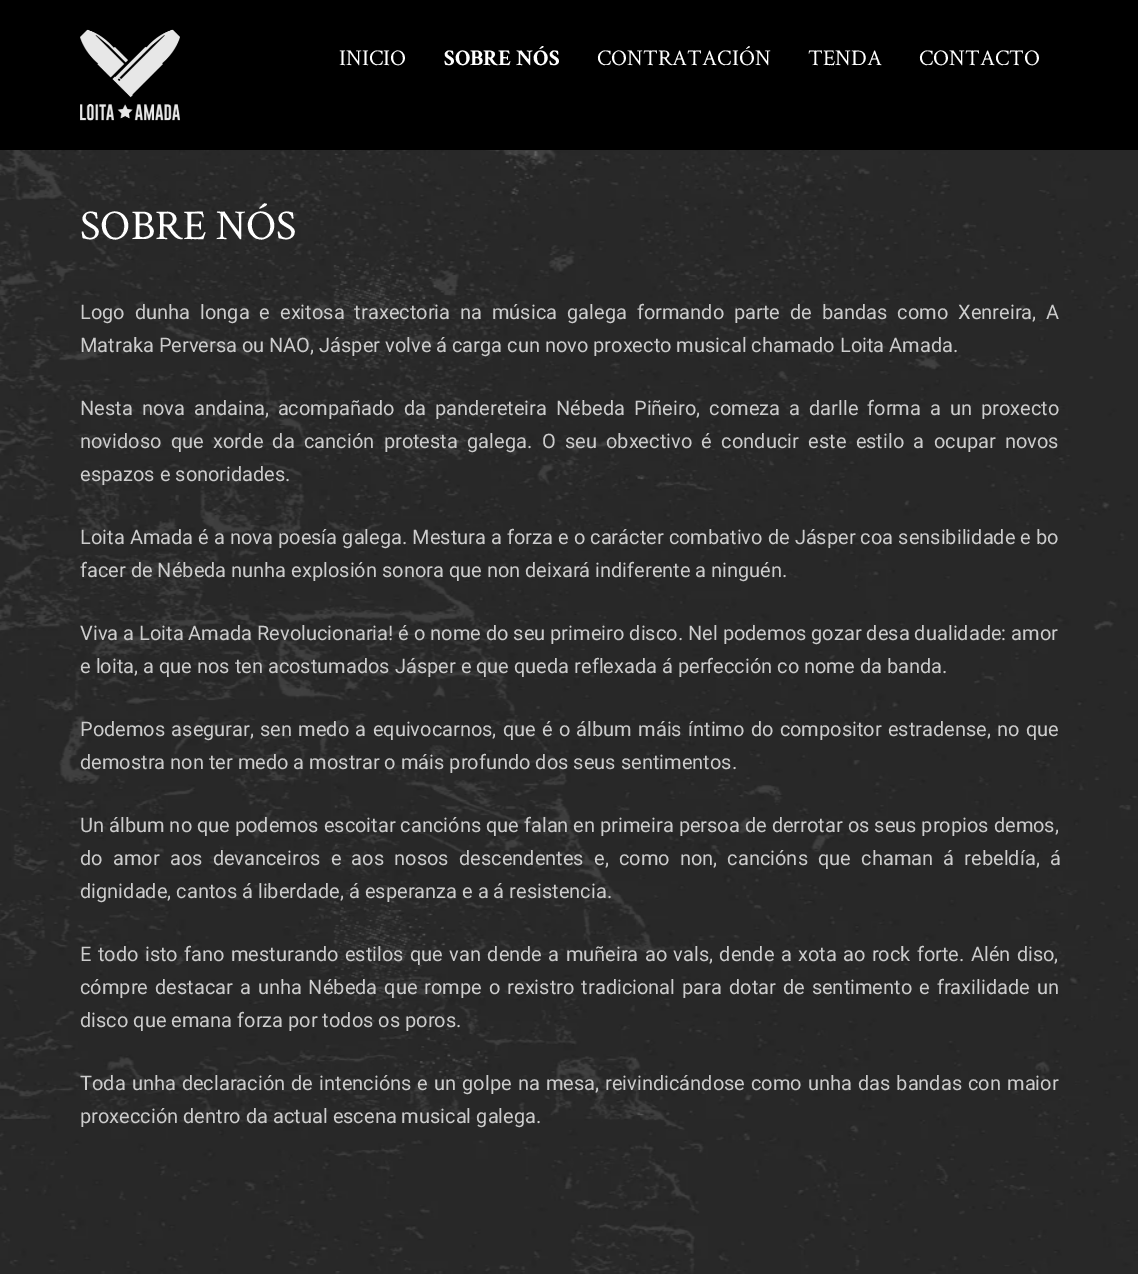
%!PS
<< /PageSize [1138 1274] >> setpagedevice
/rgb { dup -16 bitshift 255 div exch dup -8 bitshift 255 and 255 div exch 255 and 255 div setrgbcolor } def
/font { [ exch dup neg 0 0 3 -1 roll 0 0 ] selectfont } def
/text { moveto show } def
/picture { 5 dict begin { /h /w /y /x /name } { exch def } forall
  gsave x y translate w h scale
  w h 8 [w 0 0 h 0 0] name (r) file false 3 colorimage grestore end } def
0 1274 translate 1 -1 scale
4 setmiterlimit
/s1 { /CrimsonText-Regular 22.5 font 16#FFFFFF rgb } def
/s2 { /CrimsonText-Bold 22.5 font 16#FFFFFF rgb } def
/s3 { /CrimsonText-Regular 42.5 font 16#FFFFFF rgb } def
/s4 { /Roboto-Regular 20 font 16#CCCCCC rgb } def
16#FFFFFF rgb
0 0 1138 1274 rectfill
(pic1.raw) 0 150 1138 1124 picture
16#000000 rgb
0 0 1138 150 rectfill
(pic2.raw) 80 29 100 92 picture
s1
(INICIO) 339 65 text
s2
(SOBRE NÓS) 444 65 text
s1
(CONTRATACIÓN) 597 65 text
(TENDA) 808 65 text
(CONTACTO) 919 65 text
s3
(SOBRE NÓS) 80 239 text
/Roboto-Regular 20 font
16#CCCCCC rgb
80 319 moveto 5 0 32 (Logo dunha longa e exitosa traxectoria na música galega formando parte de bandas como Xenreira, A) widthshow
(Matraka Perversa ou NAO, Jásper volve á carga cun novo proxecto musical chamado Loita Amada.) 80 352 text
80 415 moveto 4.1 0 32 (Nesta nova andaina, acompañado da pandereteira Nébeda Piñeiro, comeza a darlle forma a un proxecto) widthshow
80 448 moveto 4.4 0 32 (novidoso que xorde da canción protesta galega. O seu obxectivo é conducir este estilo a ocupar novos) widthshow
(espazos e sonoridades.) 80 481 text
80 544 moveto 0.1 0 32 (Loita Amada é a nova poesía galega. Mestura a forza e o carácter combativo de Jásper coa sensibilidade e bo) widthshow
(facer de Nébeda nunha explosión sonora que non deixará indiferente a ninguén.) 80 577 text
(Viva a Loita Amada Revolucionaria! é o nome do seu primeiro disco. Nel podemos gozar desa dualidade: amor) 80 640 text
(e loita, a que nos ten acostumados Jásper e que queda reflexada á perfección co nome da banda.) 80 673 text
80 736 moveto 1.3 0 32 (Podemos asegurar, sen medo a equivocarnos, que é o álbum máis íntimo do compositor estradense, no que) widthshow
(demostra non ter medo a mostrar o máis profundo dos seus sentimentos.) 80 769 text
(Un álbum no que podemos escoitar cancións que falan en primeira persoa de derrotar os seus propios demos,) 80 832 text
80 865 moveto 5.25 0 32 (do amor aos devanceiros e aos nosos descendentes e, como non, cancións que chaman á rebeldía, á) widthshow
(dignidade, cantos á liberdade, á esperanza e a á resistencia.) 80 898 text
80 961 moveto 1.4 0 32 (E todo isto fano mesturando estilos que van dende a muñeira ao vals, dende a xota ao rock forte. Alén diso,) widthshow
80 994 moveto 2 0 32 (cómpre destacar a unha Nébeda que rompe o rexistro tradicional para dotar de sentimento e fraxilidade un) widthshow
(disco que emana forza por todos os poros.) 80 1027 text
80 1090 moveto 1.1 0 32 (Toda unha declaración de intencións e un golpe na mesa, reivindicándose como unha das bandas con maior) widthshow
(proxección dentro da actual escena musical galega.) 80 1123 text
showpage
